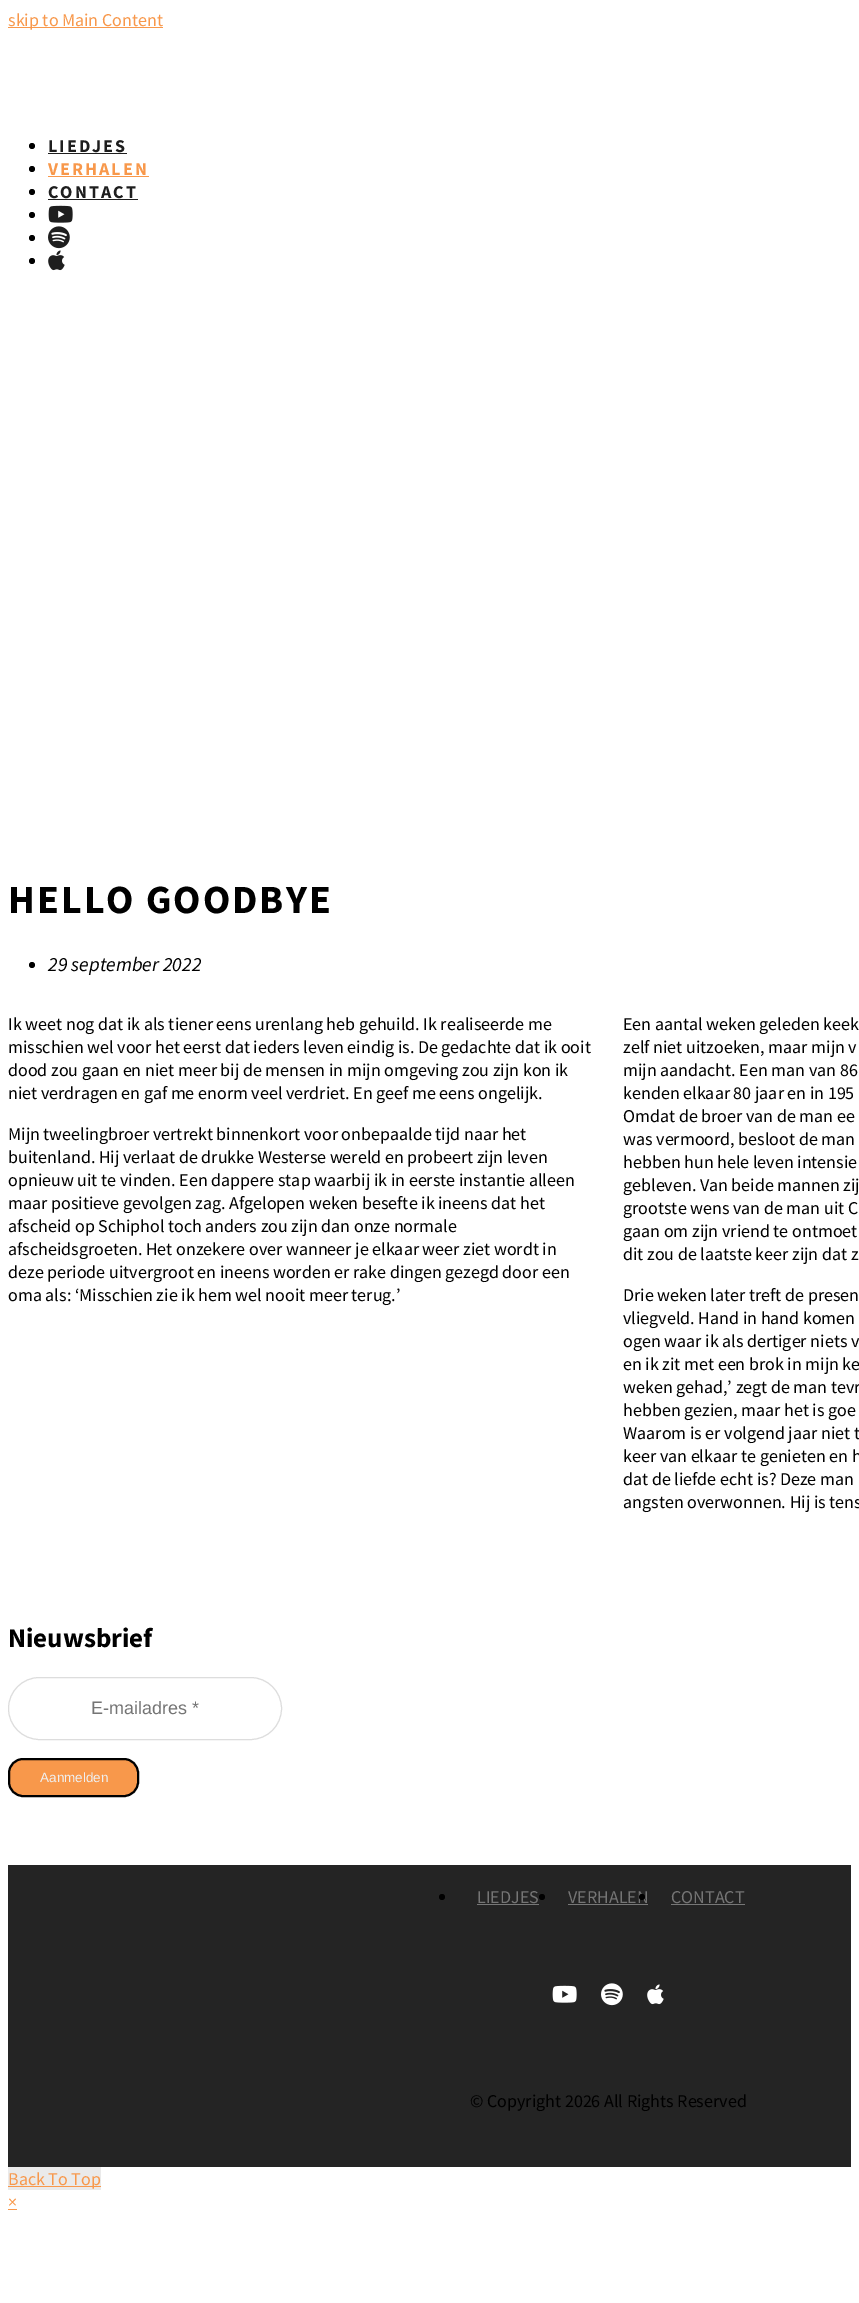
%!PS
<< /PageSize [859 2303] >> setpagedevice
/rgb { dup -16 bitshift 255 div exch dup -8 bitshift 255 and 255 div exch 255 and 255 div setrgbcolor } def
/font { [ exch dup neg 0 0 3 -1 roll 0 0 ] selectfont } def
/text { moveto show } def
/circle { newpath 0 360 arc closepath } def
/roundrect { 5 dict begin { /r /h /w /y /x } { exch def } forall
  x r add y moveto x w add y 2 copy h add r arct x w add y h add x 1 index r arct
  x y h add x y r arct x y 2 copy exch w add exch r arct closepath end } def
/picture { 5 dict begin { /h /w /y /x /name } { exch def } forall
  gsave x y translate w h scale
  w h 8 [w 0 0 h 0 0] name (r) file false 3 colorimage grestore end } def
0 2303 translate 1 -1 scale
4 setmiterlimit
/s1 { /SourceSansPro-Regular 18 font 16#F8984B rgb } def
/s2 { /SourceSansPro-Italic 20 font 16#000000 rgb } def
/s3 { /SourceSansPro-Regular 18 font 16#000000 rgb } def
/s4 { /SourceSansPro-Bold 27 font 16#000000 rgb } def
/s5 { /LiberationSans-Regular 18 font 16#757575 rgb } def
/s6 { /LiberationSans-Regular 13.5 font 16#EFEFEF rgb } def
/s7 { /SourceSansPro-Regular 18 font 16#757575 rgb } def
16#FFFFFF rgb
0 0 859 2303 rectfill
16#F8984B rgb
8 27 155 1 rectfill
s1
(skip to Main Content) 8 26 text
16#000000 rgb
32 146 3 circle fill
/SourceSansPro-Bold 18 font
16#1E1E1E rgb
48 152 moveto 2 0 (LIEDJES) ashow
48 153 79 1 rectfill
16#000000 rgb
32 169 3 circle fill
16#F8984B rgb
48 175 moveto 2 0 (VERHALEN) ashow
48 176 101 1 rectfill
16#000000 rgb
32 192 3 circle fill
16#1E1E1E rgb
48 198 moveto 2 0 (CONTACT) ashow
48 199 90 1 rectfill
16#000000 rgb
32 215 3 circle fill
(pic1.raw) 48 205 25 18 picture
32 238 3 circle fill
(pic2.raw) 48 226 22 23 picture
32 261 3 circle fill
(pic3.raw) 48 250 17 21 picture
/SourceSansPro-Bold 40 font
8 913 moveto 2 0 (HELLO GOODBYE) ashow
32 965 3 circle fill
s2
(29 september 2022) 48 971 text
s3
(Ik weet nog dat ik als tiener eens urenlang heb gehuild. Ik realiseerde me) 8 1030 text
(misschien wel voor het eerst dat ieders leven eindig is. De gedachte dat ik ooit) 8 1053 text
(dood zou gaan en niet meer bij de mensen in mijn omgeving zou zijn kon ik) 8 1076 text
(niet verdragen en gaf me enorm veel verdriet. En geef me eens ongelijk.) 8 1099 text
(Mijn tweelingbroer vertrekt binnenkort voor onbepaalde tijd naar het) 8 1140 text
(buitenland. Hij verlaat de drukke Westerse wereld en probeert zijn leven) 8 1163 text
(opnieuw uit te vinden. Een dappere stap waarbij ik in eerste instantie alleen) 8 1186 text
(maar positieve gevolgen zag. Afgelopen weken besefte ik ineens dat het) 8 1209 text
(afscheid op Schiphol toch anders zou zijn dan onze normale) 8 1232 text
(afscheidsgroeten. Het onzekere over wanneer je elkaar weer ziet wordt in) 8 1255 text
(deze periode uitvergroot en ineens worden er rake dingen gezegd door een) 8 1278 text
(oma als: ‘Misschien zie ik hem wel nooit meer terug.’) 8 1301 text
(Een aantal weken geleden keek) 623 1030 text
(zelf niet uitzoeken, maar mijn v) 623 1053 text
(mijn aandacht. Een man van 86) 623 1076 text
(kenden elkaar 80 jaar en in 195) 623 1099 text
(Omdat de broer van de man ee) 623 1122 text
(was vermoord, besloot de man) 623 1145 text
(hebben hun hele leven intensie) 623 1168 text
(gebleven. Van beide mannen zij) 623 1191 text
(grootste wens van de man uit C) 623 1214 text
(gaan om zijn vriend te ontmoet) 623 1237 text
(dit zou de laatste keer zijn dat z) 623 1260 text
(Drie weken later treft de presen) 623 1301 text
(vliegveld. Hand in hand komen) 623 1324 text
(ogen waar ik als dertiger niets v) 623 1347 text
(en ik zit met een brok in mijn ke) 623 1370 text
(weken gehad,’ zegt de man tevr) 623 1393 text
(hebben gezien, maar het is goe) 623 1416 text
(Waarom is er volgend jaar niet t) 623 1439 text
(keer van elkaar te genieten en h) 623 1462 text
(dat de liefde echt is? Deze man) 623 1485 text
(angsten overwonnen. Hij is tens) 623 1508 text
s4
(Nieuwsbrief) 8 1647 text
16#DDDDDD rgb
8.5 1677.5 273 62 31 roundrect stroke
s5
(E-mailadres *) 91 1714 text
16#F8984B rgb
9 1759 129 37 14 roundrect gsave fill grestore
16#000000 rgb
2 setlinewidth
stroke
s6
(Aanmelden) 40 1782 text
16#242424 rgb
8 1865 843 302 rectfill
16#000000 rgb
442 1897 3 circle fill
s7
(LIEDJES) 477 1903 text
16#777777 rgb
477 1904 62 1 rectfill
16#000000 rgb
542 1897 3 circle fill
s7
(VERHALEN) 568 1903 text
16#777777 rgb
568 1904 80 1 rectfill
16#000000 rgb
642 1897 3 circle fill
s7
(CONTACT) 671 1903 text
16#777777 rgb
671 1904 74 1 rectfill
(pic4.raw) 552 1985 25 18 picture
(pic5.raw) 601 1983 22 23 picture
(pic6.raw) 647 1984 17 21 picture
s3
(© Copyright 2026 All Rights Reserved) 470 2107 text
16#EAEAEA rgb
8 2167 93 23 rectfill
16#F8984B rgb
8 2186 93 1 rectfill
(Back To Top) 8 2185 text
(×) 8 2208 text
8 2209 9 1 rectfill
showpage
